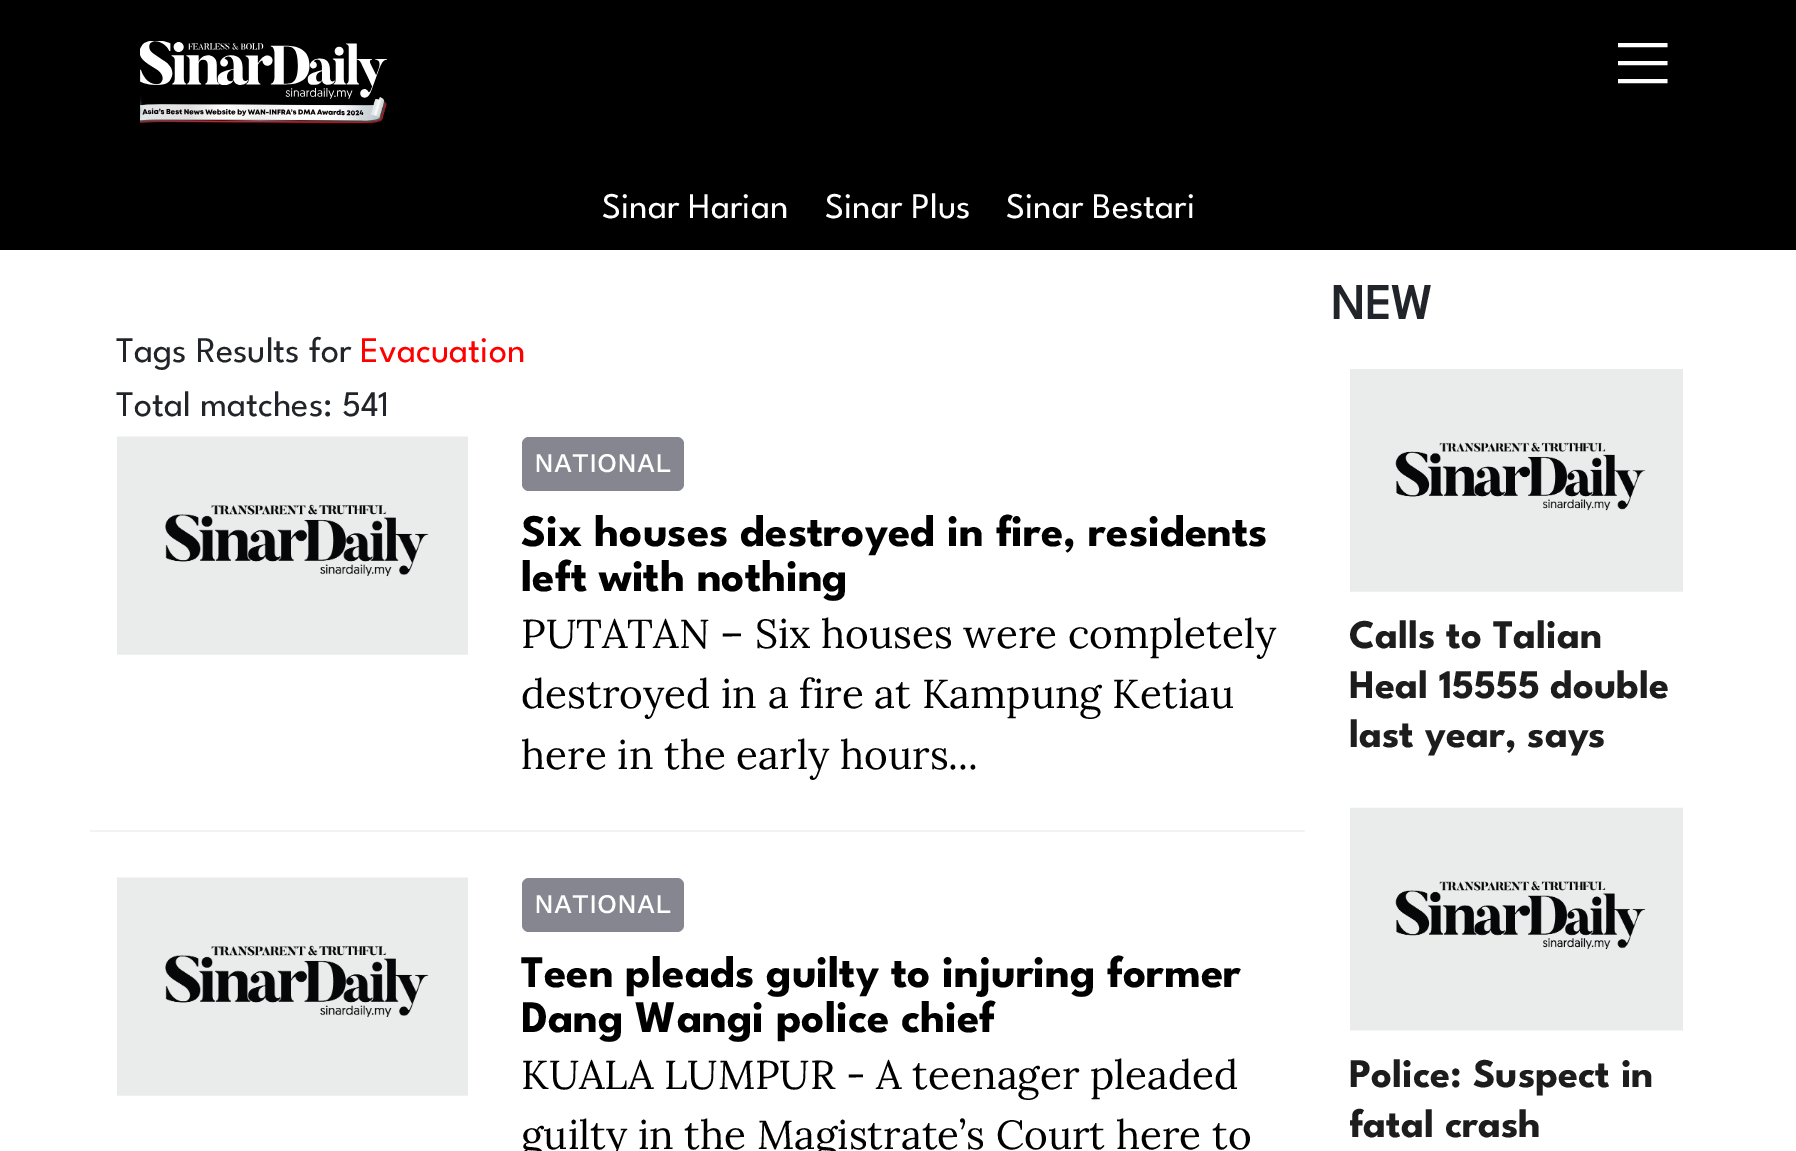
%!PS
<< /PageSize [1796 1151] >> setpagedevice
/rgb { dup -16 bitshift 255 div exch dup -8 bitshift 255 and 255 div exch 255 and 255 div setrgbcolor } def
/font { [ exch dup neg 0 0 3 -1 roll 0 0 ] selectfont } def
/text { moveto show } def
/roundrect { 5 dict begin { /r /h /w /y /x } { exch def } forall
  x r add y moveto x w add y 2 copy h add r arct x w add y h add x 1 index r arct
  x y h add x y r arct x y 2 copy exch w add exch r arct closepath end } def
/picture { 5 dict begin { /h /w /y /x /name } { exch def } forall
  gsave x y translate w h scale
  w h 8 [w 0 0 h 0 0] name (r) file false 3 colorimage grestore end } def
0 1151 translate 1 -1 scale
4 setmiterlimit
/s1 { /LeagueSpartan-Regular 36 font 16#FFFFFF rgb } def
/s2 { /LeagueSpartan-Regular 36 font 16#212529 rgb } def
/s3 { /LeagueSpartan-Regular 36 font 16#FF0000 rgb } def
/s4 { /WorkSans-Medium 27 font 16#FFFFFF rgb } def
/s5 { /LeagueSpartan-Bold 45 font 16#000000 rgb } def
/s6 { /Lora-Regular 40.5 font 16#000000 rgb } def
/s7 { /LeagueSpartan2-Bold 49.5 font 16#212529 rgb } def
/s8 { /LeagueSpartan-Bold 40.5 font 16#1D1D1D rgb } def
16#FFFFFF rgb
0 0 1796 1151 rectfill
16#000000 rgb
0 0 1796 250 rectfill
(pic1.raw) 140 41 247 83 picture
16#FFFFFF rgb
4.1 setlinewidth
1618 45 moveto 1667.5 45 lineto 1618 63 moveto 1667.5 63 lineto 1618 81 moveto 1667.5 81 lineto stroke
s1
(Sinar Harian) 602 218 text
(Sinar Plus) 825 218 text
(Sinar Bestari) 1006 218 text
s2
(Tags Results for) 116 362 text
s3
(Evacuation) 360 362 text
s2
(Total matches: 541) 116 416 text
16#F3F3F3 rgb
90 830 1215 2 rectfill
(pic2.raw) 117 436 351 219 picture
16#868690 rgb
522 437 162 54 7 roundrect fill
s4
(NATIONAL) 534 472 text
s5
(Six houses destroyed in fire, residents) 521 546 text
(left with nothing) 521 591 text
s6
(PUTATAN – Six houses were completely) 521 648 text
(destroyed in a fire at Kampung Ketiau) 521 708 text
(here in the early hours...) 521 769 text
(pic2.raw) 117 877 351 219 picture
16#868690 rgb
522 878 162 54 7 roundrect fill
s4
(NATIONAL) 534 913 text
s5
(Teen pleads guilty to injuring former) 521 987 text
(Dang Wangi police chief) 521 1032 text
s6
(KUALA LUMPUR - A teenager pleaded) 521 1089 text
(guilty in the Magistrate’s Court here to) 521 1149 text
s7
(NEW) 1331 319 text
(pic3.raw) 1350 369 333 223 picture
s8
(Calls to Talian) 1349 648 text
(Heal 15555 double) 1349 698 text
(last year, says) 1349 747 text
(pic4.raw) 1350 807 333 224 picture
(Police: Suspect in) 1349 1087 text
gsave
1350 1053 333 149 rectclip
(fatal crash) 1349 1137 text
grestore
showpage
